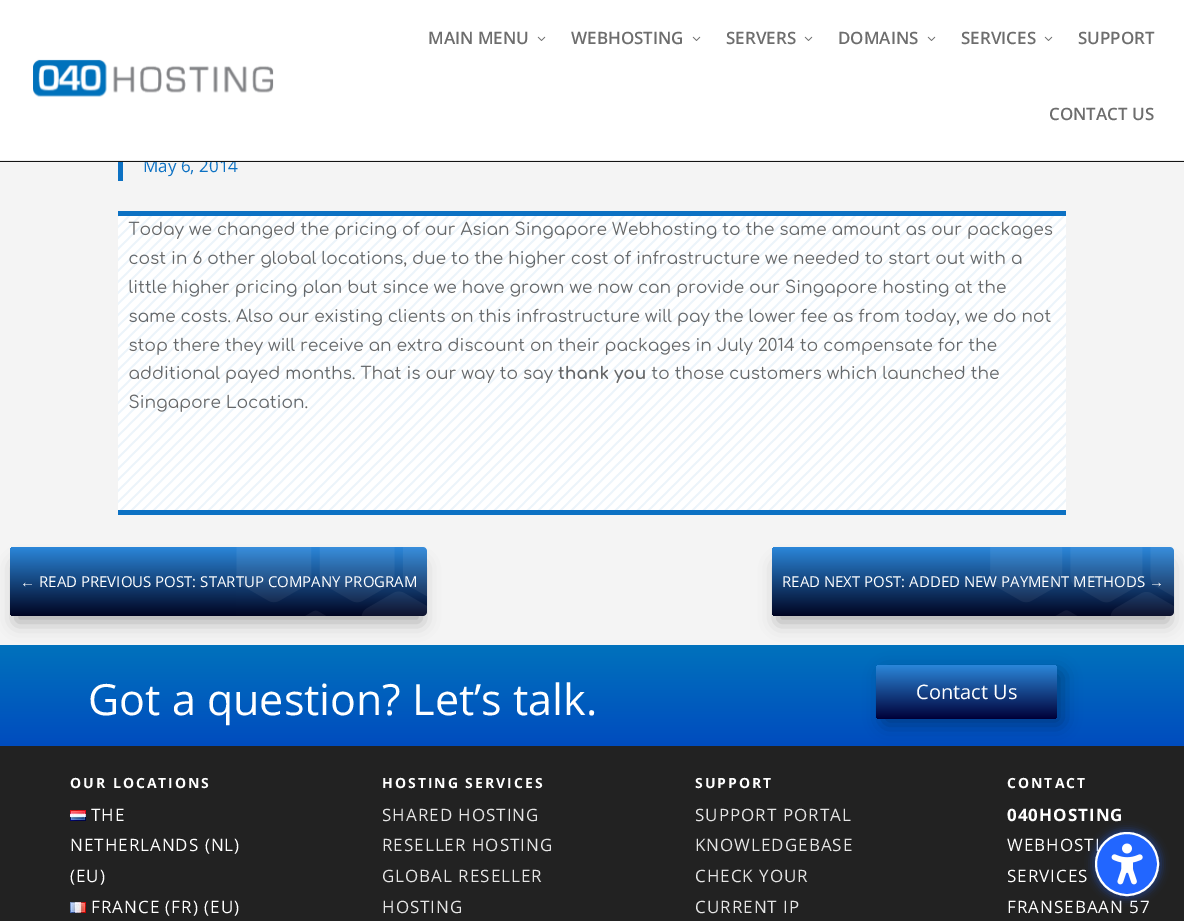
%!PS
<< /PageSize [1184 921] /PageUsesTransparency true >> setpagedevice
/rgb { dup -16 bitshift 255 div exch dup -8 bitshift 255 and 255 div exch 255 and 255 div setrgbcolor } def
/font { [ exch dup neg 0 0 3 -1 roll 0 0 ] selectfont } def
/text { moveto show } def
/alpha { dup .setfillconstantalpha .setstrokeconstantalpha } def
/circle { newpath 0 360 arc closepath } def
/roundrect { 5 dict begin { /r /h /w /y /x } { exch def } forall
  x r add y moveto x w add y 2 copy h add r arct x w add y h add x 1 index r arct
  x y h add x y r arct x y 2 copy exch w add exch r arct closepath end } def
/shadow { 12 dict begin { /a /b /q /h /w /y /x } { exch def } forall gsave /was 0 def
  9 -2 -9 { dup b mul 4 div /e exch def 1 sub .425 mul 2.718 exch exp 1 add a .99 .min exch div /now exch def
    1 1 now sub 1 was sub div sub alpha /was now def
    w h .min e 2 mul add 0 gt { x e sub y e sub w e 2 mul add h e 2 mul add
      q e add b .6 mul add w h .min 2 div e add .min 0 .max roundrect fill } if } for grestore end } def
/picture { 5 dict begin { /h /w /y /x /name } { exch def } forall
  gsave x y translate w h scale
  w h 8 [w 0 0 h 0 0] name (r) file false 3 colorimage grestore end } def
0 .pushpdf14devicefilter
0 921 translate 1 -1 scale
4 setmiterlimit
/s1 { /OpenSans-Regular 17 font 16#0C71C3 rgb } def
/s2 { /OpenSans-SemiBold 17 font 16#6D6D6D rgb } def
/s3 { /Comfortaa-Regular 17 font 16#666666 rgb } def
/s4 { /Comfortaa-Bold 17 font 16#666666 rgb } def
/s5 { /LiberationSans-Regular 15 font 16#FFFFFF rgb } def
/s6 { /OpenSans-Regular 15 font 16#FFFFFF rgb } def
/s7 { /OpenSans-Regular 43 font 16#FFFFFF rgb } def
/s8 { /OpenSans-Regular 20 font 16#FFFFFF rgb } def
16#F4F4F4 rgb
0 0 1184 921 rectfill
s1
(May 6, 2014) 143 172 text
gsave 0 0 moveto 1184 0 lineto 1184 162 lineto 0 162 lineto closepath clip newpath
<< /ShadingType 2 /ColorSpace /DeviceRGB /Coords [592 0 592 162] /Extend [true true] /Function << /FunctionType 3 /Domain [0 1] /Functions [<< /FunctionType 2 /Domain [0 1] /C0 [1 1 1] /C1 [1 1 1] /N 1 >> << /FunctionType 2 /Domain [0 1] /C0 [1 1 1] /C1 [0.078 0.078 0.078] /N 1 >>] /Bounds [0.99] /Encode [0 1 0 1] >> >> shfill grestore
(pic1.raw) 33 59 241 38 picture
s2
(MAIN MENU) 428 44 text
(pic2.raw) 537 36 9 5 picture
(WEBHOSTING) 571 44 text
(pic2.raw) 692 36 9 5 picture
(SERVERS) 726 44 text
(pic2.raw) 804 36 9 5 picture
(DOMAINS) 838 44 text
(pic2.raw) 927 36 9 5 picture
(SERVICES) 961 44 text
(pic2.raw) 1044 36 9 5 picture
(SUPPORT) 1078 44 text
(CONTACT US) 1049 120 text
16#0C71C3 rgb
118 162 5 19 rectfill
16#FFFFFF rgb
118 216 948 294 rectfill
16#0C71C3 rgb
118 211 948 5 rectfill
118 510 948 5 rectfill
s3
(Today we changed the pricing of our Asian Singapore Webhosting to the same amount as our packages) 128 235 text
(cost in 6 other global locations, due to the higher cost of infrastructure we needed to start out with a) 128 264 text
(little higher pricing plan but since we have grown we now can provide our Singapore hosting at the) 128 293 text
(same costs. Also our existing clients on this infrastructure will pay the lower fee as from today, we do not) 128 322 text
(stop there they will receive an extra discount on their packages in July 2014 to compensate for the) 128 351 text
(additional payed months. That is our way to say) 128 379 text
s4
(thank you) 558 379 text
s3
(to those customers which launched the) 651 379 text
(Singapore Location.) 128 408 text
(pic3.raw) 118 216 948 294 picture
gsave 0 645 moveto 1184 645 lineto 1184 746 lineto 0 746 lineto closepath clip newpath
<< /ShadingType 2 /ColorSpace /DeviceRGB /Coords [592 645 592 746] /Extend [true true] /Function << /FunctionType 2 /Domain [0 1] /C0 [0 0.447 0.737] /C1 [0 0.298 0.749] /N 1 >> >> shfill grestore
16#000000 rgb
16 565 405 57 0 9 0.3 shadow
gsave 10 547 417 69 4 roundrect clip newpath
<< /ShadingType 2 /ColorSpace /DeviceRGB /Coords [219 547 219 616] /Extend [true true] /Function << /FunctionType 2 /Domain [0 1] /C0 [0.169 0.529 0.855] /C1 [0 0.016 0.129] /N 1 >> >> shfill grestore
(pic4.raw) 236 547 191 69 picture
s5
(←) 20 587 text
s6
(READ PREVIOUS POST: STARTUP COMPANY PROGRAM) 39 587 text
16#000000 rgb
778 565 390 57 0 9 0.3 shadow
gsave 772 547 402 69 4 roundrect clip newpath
<< /ShadingType 2 /ColorSpace /DeviceRGB /Coords [973 547 973 616] /Extend [true true] /Function << /FunctionType 2 /Domain [0 1] /C0 [0.169 0.529 0.855] /C1 [0 0.016 0.129] /N 1 >> >> shfill grestore
(pic5.raw) 990 547 184 69 picture
s6
(READ NEXT POST: ADDED NEW PAYMENT METHODS) 782 587 text
s5
(→) 1149 587 text
s7
(Got a question? Let’s talk.) 88 715 text
16#000000 rgb
882 671 181 54 4 9 0.3 shadow
gsave 876 665 181 54 4 roundrect clip newpath
<< /ShadingType 2 /ColorSpace /DeviceRGB /Coords [967 665 967 719] /Extend [true true] /Function << /FunctionType 2 /Domain [0 1] /C0 [0.169 0.529 0.855] /C1 [0 0 0.22] /N 1 >> >> shfill grestore
s8
(Contact Us) 916 699 text
16#222222 rgb
0 746 1184 175 rectfill
/OpenSans-Bold 14 font
16#FFFFFF rgb
70 788 moveto 2 0 (OUR LOCATIONS) ashow
(pic6.raw) 70 810 16 11 picture
/OpenSans-Regular 17 font
91 821 moveto 1 0 (THE) ashow
70 851 moveto 1 0 (NETHERLANDS \(NL\)) ashow
70 882 moveto 1 0 (\(EU\)) ashow
(pic7.raw) 70 902 16 11 picture
91 913 moveto 1 0 (FRANCE \(FR\) \(EU\)) ashow
/OpenSans-Bold 14 font
382 788 moveto 2 0 (HOSTING SERVICES) ashow
/OpenSans-Regular 17 font
16#E5E5E5 rgb
382 821 moveto 1 0 (SHARED HOSTING) ashow
382 851 moveto 1 0 (RESELLER HOSTING) ashow
382 882 moveto 1 0 (GLOBAL RESELLER) ashow
382 913 moveto 1 0 (HOSTING) ashow
/OpenSans-Bold 14 font
16#FFFFFF rgb
695 788 moveto 2 0 (SUPPORT) ashow
/OpenSans-Regular 17 font
16#E5E5E5 rgb
695 821 moveto 1 0 (SUPPORT PORTAL) ashow
695 851 moveto 1 0 (KNOWLEDGEBASE) ashow
695 882 moveto 1 0 (CHECK YOUR) ashow
695 913 moveto 1 0 (CURRENT IP) ashow
/OpenSans-Bold 14 font
16#FFFFFF rgb
1007 788 moveto 2 0 (CONTACT) ashow
/OpenSans-Bold 17 font
1007 821 moveto 1 0 (040HOSTING) ashow
/OpenSans-Regular 17 font
1007 851 moveto 1 0 (WEBHOSTI) ashow
1007 882 moveto 1 0 (SERVICES) ashow
1007 913 moveto 1 0 (FRANSEBAAN 57) ashow
16#2266FF rgb
1093 830 68 68 34 4 0.4 shadow
1127 864 31 circle gsave fill grestore
16#FFFFFF rgb
2 setlinewidth
stroke
(pic8.raw) 1111 843 32 42 picture
.poppdf14devicefilter showpage
